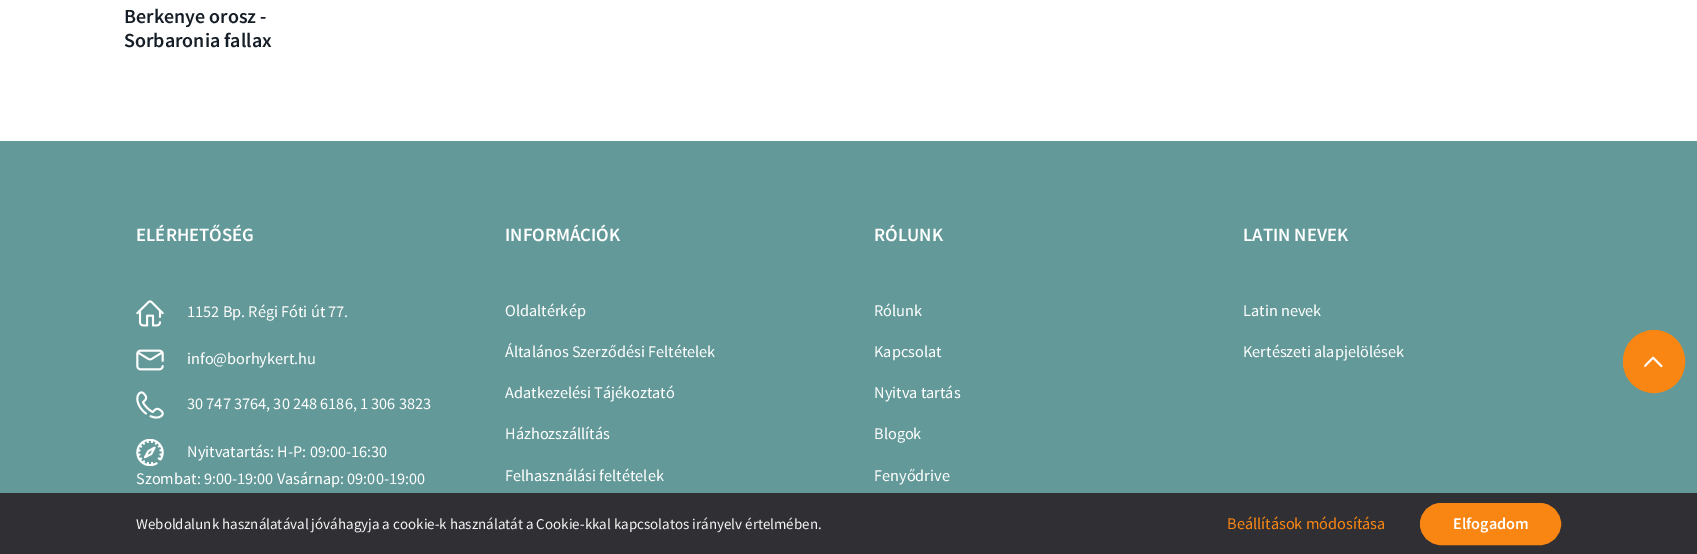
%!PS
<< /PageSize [1697 554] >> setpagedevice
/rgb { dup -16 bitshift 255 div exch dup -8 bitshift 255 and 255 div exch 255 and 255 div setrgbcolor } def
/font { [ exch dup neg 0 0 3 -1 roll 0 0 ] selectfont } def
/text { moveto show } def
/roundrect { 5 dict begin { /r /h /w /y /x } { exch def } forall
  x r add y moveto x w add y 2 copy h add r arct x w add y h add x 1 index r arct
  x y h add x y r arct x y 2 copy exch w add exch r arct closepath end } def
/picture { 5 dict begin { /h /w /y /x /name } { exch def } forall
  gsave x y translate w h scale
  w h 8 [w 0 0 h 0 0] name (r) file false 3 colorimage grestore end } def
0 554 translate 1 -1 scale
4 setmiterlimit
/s1 { /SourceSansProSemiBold-SemiBold 20 font 16#151E26 rgb } def
/s2 { /SourceSansProSemiBold-SemiBold 18.75 font 16#FFFFFF rgb } def
/s3 { /SourceSansPro-Regular 16.25 font 16#FFFFFF rgb } def
/s4 { /SourceSansPro-Regular 15 font 16#F5F5F5 rgb } def
/s5 { /SourceSansPro-Regular 16.25 font 16#F98613 rgb } def
/s6 { /SourceSansProSemiBold-SemiBold 16.25 font 16#FFFFFF rgb } def
16#FFFFFF rgb
0 0 1697 554 rectfill
s1
(Berkenye orosz -) 124 23 text
(Sorbaronia fallax) 124 47 text
16#639999 rgb
0 141 1697 352 rectfill
s2
(ELÉRHETŐSÉG) 136 241 text
(pic1.raw) 136 300 28 27 picture
s3
(1152 Bp. Régi Fóti út 77.) 187 317 text
(pic2.raw) 136 349 28 22 picture
(info@borhykert.hu) 187 364 text
(pic3.raw) 136 391 28 28 picture
(30 747 3764, 30 248 6186, 1 306 3823) 187 409 text
(pic4.raw) 136 439 28 27 picture
(Nyitvatartás: H-P: 09:00-16:30) 187 457 text
(Szombat: 9:00-19:00 Vasárnap: 09:00-19:00) 136 484 text
s2
(INFORMÁCIÓK) 505 241 text
s3
(Oldaltérkép) 505 316 text
(Általános Szerződési Feltételek) 505 357 text
(Adatkezelési Tájékoztató) 505 398 text
(Házhozszállítás) 505 439 text
(Felhasználási feltételek) 505 481 text
s2
(RÓLUNK) 874 241 text
s3
(Rólunk) 874 316 text
(Kapcsolat) 874 357 text
(Nyitva tartás) 874 398 text
(Blogok) 874 439 text
(Fenyődrive) 874 481 text
s2
(LATIN NEVEK) 1243 241 text
s3
(Latin nevek) 1243 316 text
(Kertészeti alapjelölések) 1243 357 text
16#F98613 rgb
1623.5 330.5 61 62 30.5 roundrect gsave fill grestore
stroke
(pic5.raw) 1644 356 19 12 picture
16#302F34 rgb
0 493 1697 61 rectfill
s4
(Weboldalunk használatával jóváhagyja a cookie-k használatát a Cookie-kkal kapcsolatos irányelv értelmében.) 136 529 text
s5
(Beállítások módosítása) 1227 529 text
1420.5 503.5 140 41 20.5 roundrect gsave fill grestore
stroke
s6
(Elfogadom) 1453 529 text
showpage
